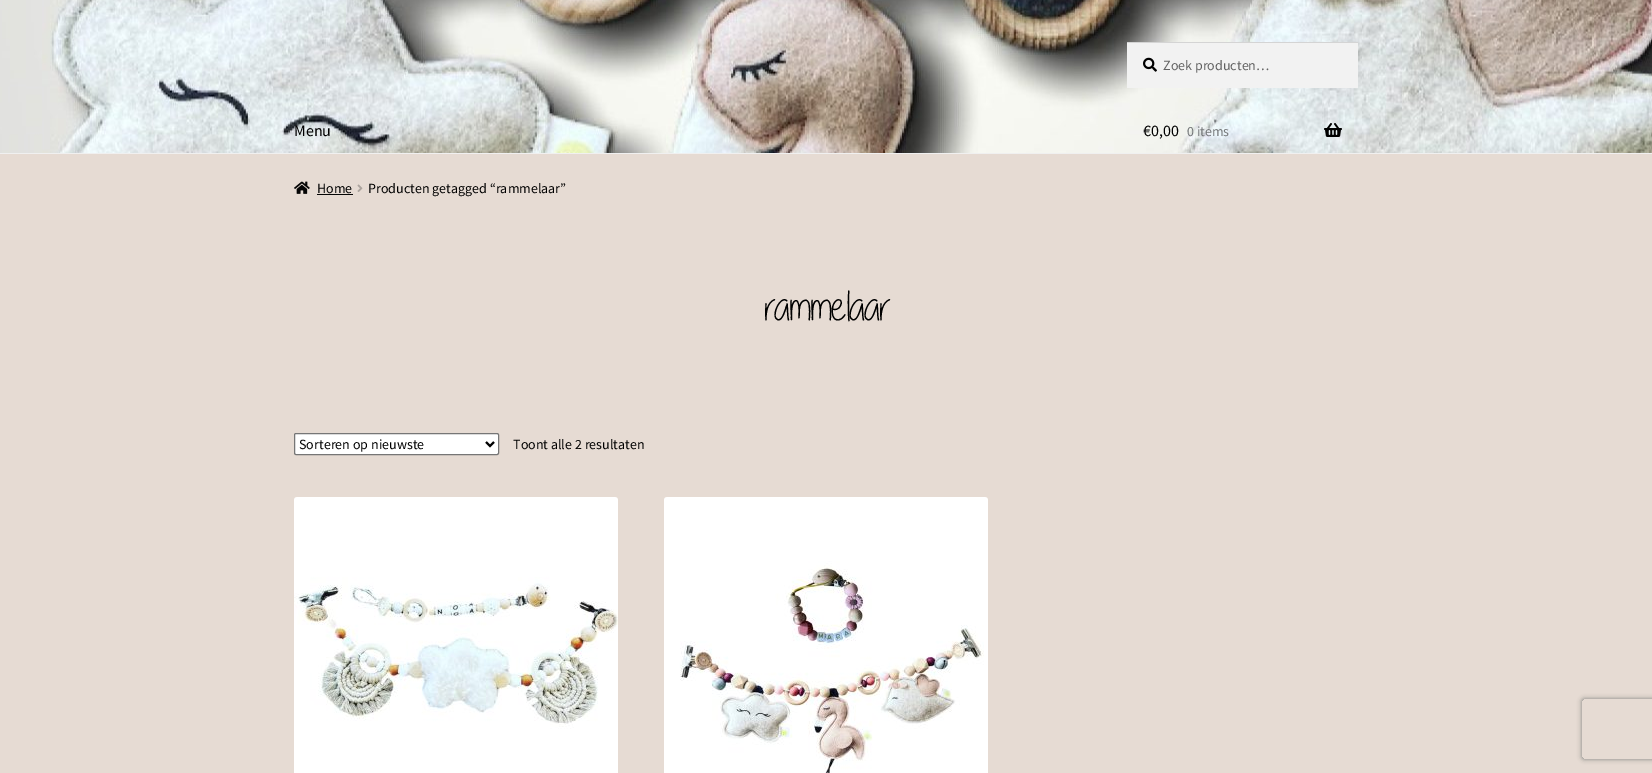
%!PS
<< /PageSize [1652 773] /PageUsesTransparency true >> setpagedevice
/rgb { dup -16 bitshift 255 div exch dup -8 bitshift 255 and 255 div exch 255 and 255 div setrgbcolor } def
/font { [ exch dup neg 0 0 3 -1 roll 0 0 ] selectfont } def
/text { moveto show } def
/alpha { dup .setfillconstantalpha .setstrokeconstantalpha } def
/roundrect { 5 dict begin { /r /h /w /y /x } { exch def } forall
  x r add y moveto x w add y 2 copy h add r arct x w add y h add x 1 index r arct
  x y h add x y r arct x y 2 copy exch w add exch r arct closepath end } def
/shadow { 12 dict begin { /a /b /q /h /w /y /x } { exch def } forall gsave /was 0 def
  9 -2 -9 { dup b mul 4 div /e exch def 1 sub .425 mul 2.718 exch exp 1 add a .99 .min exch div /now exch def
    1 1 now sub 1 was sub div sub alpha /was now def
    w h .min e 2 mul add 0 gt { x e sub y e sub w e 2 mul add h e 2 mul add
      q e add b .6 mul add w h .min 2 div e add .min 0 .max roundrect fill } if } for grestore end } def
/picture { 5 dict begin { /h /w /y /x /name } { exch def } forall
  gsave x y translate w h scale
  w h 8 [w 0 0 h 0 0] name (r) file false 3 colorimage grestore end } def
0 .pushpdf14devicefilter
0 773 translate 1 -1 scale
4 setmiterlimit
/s1 { /SourceSansPro-Regular 14 font 16#616161 rgb } def
/s2 { /SourceSansPro-Regular 16 font 16#000000 rgb } def
/s3 { /SourceSansPro-Regular 14 font 16#737678 rgb } def
/s4 { /SourceSansPro-Regular 14 font 16#000000 rgb } def
16#E6DBD3 rgb
0 0 1652 773 rectfill
(pic1.raw) 0 0 1652 153 picture
16#F0F0F0 rgb
0 153 1652 1 rectfill
16#F2F2F2 rgb
1127 43 231 45 rectfill
(pic2.raw) 1143 57 14 15 picture
16#D4D4D4 rgb
1127 42 231 1 rectfill
s1
(Zoek producten…) 1163 70 text
s2
(Menu) 294 136 text
(€0,00) 1143 136 text
s3
(0 items) 1187 136 text
(pic3.raw) 1324 123 18 14 picture
(pic4.raw) 294 181 16 13 picture
s4
(Home) 317 193 text
16#050505 rgb
317 194 36 1 rectfill
(pic5.raw) 357 184 6 8 picture
s4
(Producten getagged “rammelaar”) 368 193 text
/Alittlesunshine-Medium 42 font
764 320 moveto -1 0 (rammelaar) ashow
16#FFFFFF rgb
294.5 433.5 204 21 1.5 roundrect gsave fill grestore
16#767676 rgb
stroke
16#000000 rgb
2 setlinewidth
486 442 moveto 490 446 lineto 494 442 lineto stroke
s4
(Sorteren op nieuwste) 299 449 text
(Toont alle 2 resultaten) 513 449 text
(pic6.raw) 294 497 324 276 picture
(pic7.raw) 664 497 324 276 picture
gsave
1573 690 moveto 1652 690 lineto 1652 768 lineto 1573 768 lineto closepath 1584 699 moveto 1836 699 lineto 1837 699 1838 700 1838 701 curveto 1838 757 lineto 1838 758 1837 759 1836 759 curveto 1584 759 lineto 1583 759 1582 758 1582 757 curveto 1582 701 lineto 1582 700 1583 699 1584 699 curveto closepath eoclip newpath
16#808080 rgb
1582 699 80 60 2 2.5 1 shadow
grestore
.poppdf14devicefilter showpage
